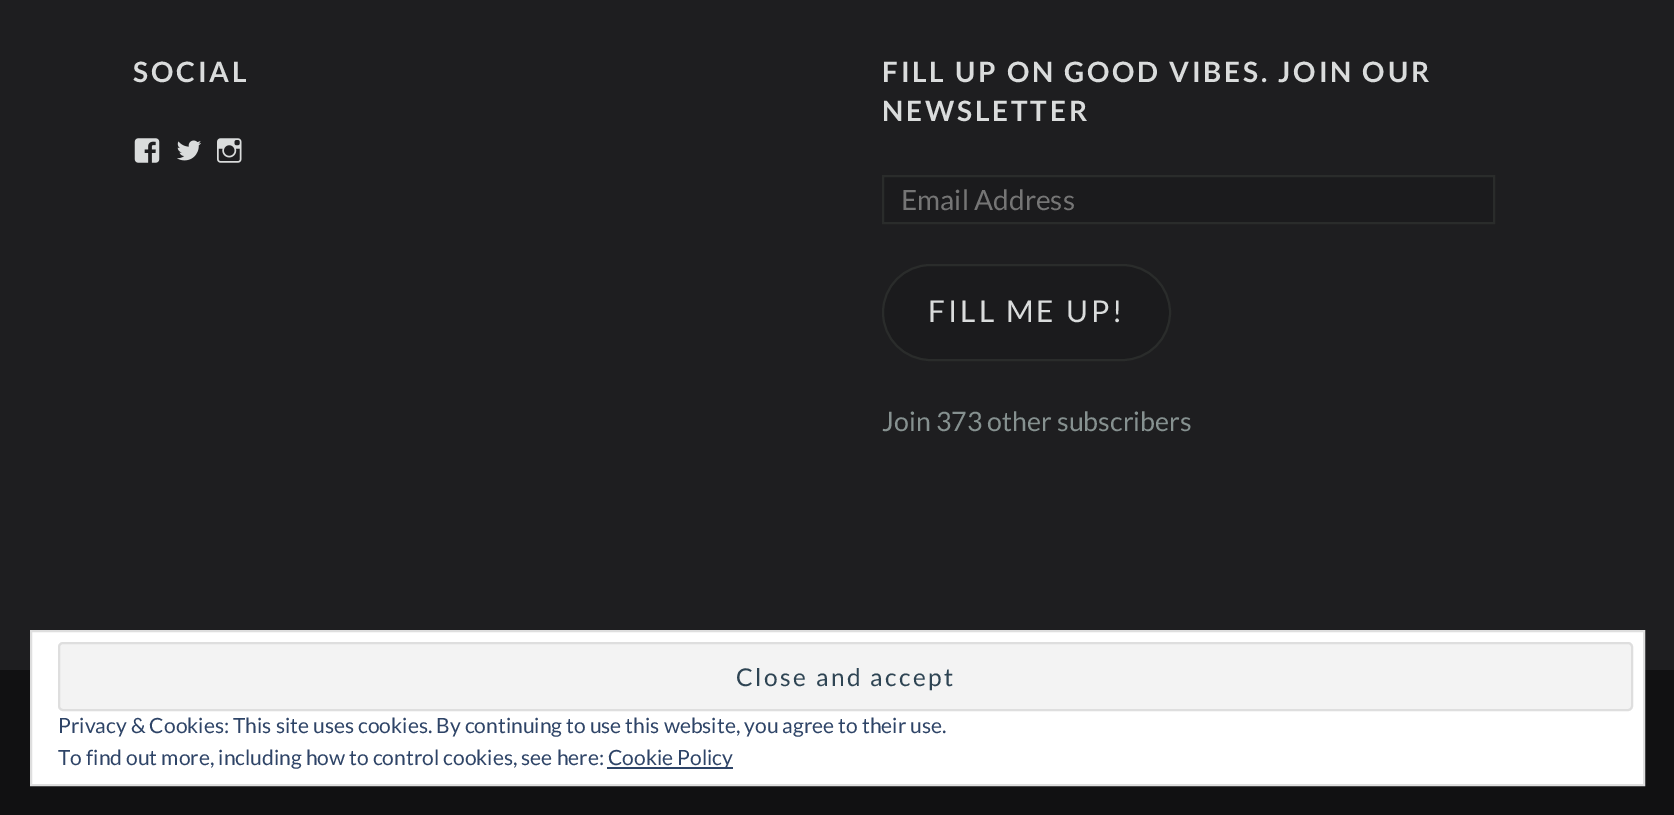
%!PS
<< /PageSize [1674 815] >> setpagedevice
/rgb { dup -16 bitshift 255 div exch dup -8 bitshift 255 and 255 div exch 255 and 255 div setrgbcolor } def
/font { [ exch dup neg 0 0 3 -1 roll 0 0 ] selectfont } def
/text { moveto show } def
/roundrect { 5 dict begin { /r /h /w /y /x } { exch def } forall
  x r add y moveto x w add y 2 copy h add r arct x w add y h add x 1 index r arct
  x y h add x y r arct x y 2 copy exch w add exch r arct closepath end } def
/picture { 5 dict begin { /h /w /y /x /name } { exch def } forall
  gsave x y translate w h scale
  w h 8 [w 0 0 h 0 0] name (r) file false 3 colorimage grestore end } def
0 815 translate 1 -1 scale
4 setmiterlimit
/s1 { /Lato-Regular 28 font 16#757575 rgb } def
/s2 { /Lato-Regular 26.75 font 16#869190 rgb } def
/s3 { /Lato-Regular 21 font 16#2E4467 rgb } def
16#1E1E20 rgb
0 0 1674 815 rectfill
/Lato-Bold 28 font
16#DADCDC rgb
133 82 moveto 2.8 0 (SOCIAL) ashow
(pic1.raw) 134 138 26 25 picture
(pic2.raw) 177 140 24 21 picture
(pic3.raw) 217 138 25 25 picture
882 82 moveto 2.8 0 (FILL UP ON GOOD VIBES. JOIN OUR) ashow
882 121 moveto 2.8 0 (NEWSLETTER) ashow
16#1B1B1D rgb
883 176 moveto 1494 176 lineto 1494 223 lineto 883 223 lineto closepath gsave fill grestore
16#2A2C2B rgb
2 setlinewidth
stroke
s1
(Email Address) 901 210 text
16#1B1B1D rgb
883 265 287 95 47.5 roundrect gsave fill grestore
16#2A2C2B rgb
stroke
/Lato-Regular 30 font
16#DADCDC rgb
928 322 moveto 3 0 (FILL ME UP!) ashow
s2
(Join 373 other subscribers) 882 431 text
16#111112 rgb
0 670 1674 145 rectfill
16#FFFFFF rgb
31 631 moveto 1644 631 lineto 1644 785 lineto 31 785 lineto closepath gsave fill grestore
16#DEDEDE rgb
stroke
16#F3F3F3 rgb
59 643 1573 67 4 roundrect gsave fill grestore
16#DEDEDE rgb
stroke
/Lato-Regular 24.5 font
16#2E4453 rgb
736 686 moveto 2.5 0 (Close and accept) ashow
s3
(Privacy & Cookies: This site uses cookies. By continuing to use this website, you agree to their use.) 58 733 text
(To find out more, including how to control cookies, see here:) 58 765 text
607 767 126 2 rectfill
(Cookie Policy) 608 765 text
showpage
